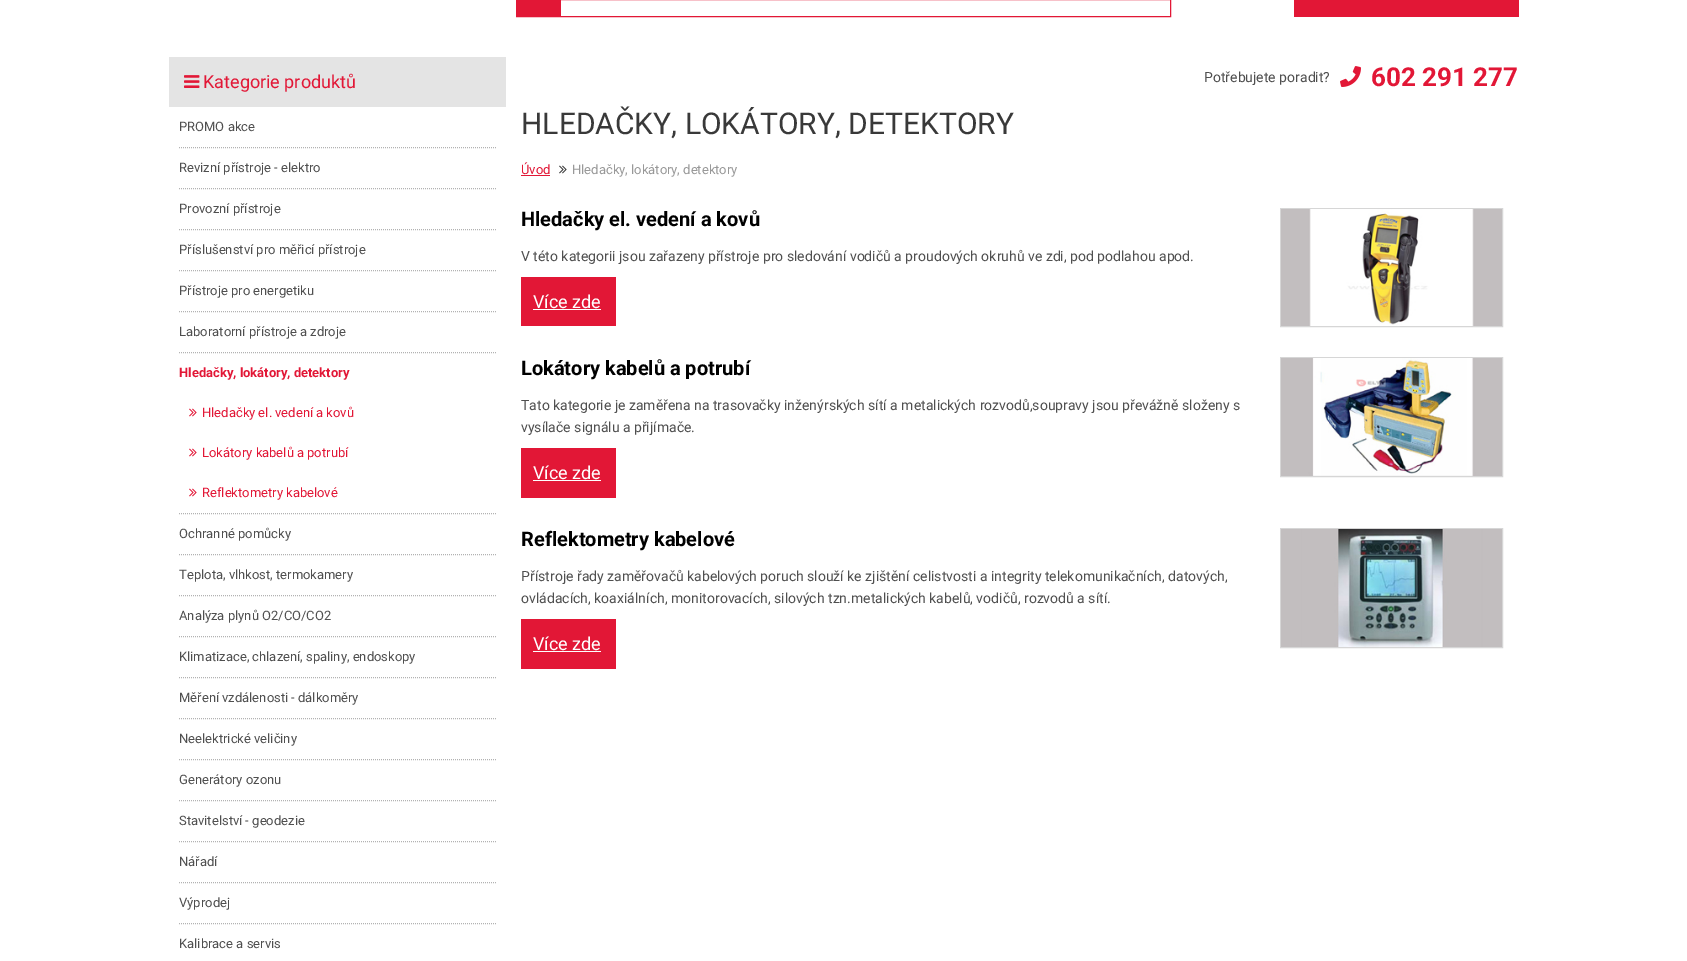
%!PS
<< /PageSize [1687 961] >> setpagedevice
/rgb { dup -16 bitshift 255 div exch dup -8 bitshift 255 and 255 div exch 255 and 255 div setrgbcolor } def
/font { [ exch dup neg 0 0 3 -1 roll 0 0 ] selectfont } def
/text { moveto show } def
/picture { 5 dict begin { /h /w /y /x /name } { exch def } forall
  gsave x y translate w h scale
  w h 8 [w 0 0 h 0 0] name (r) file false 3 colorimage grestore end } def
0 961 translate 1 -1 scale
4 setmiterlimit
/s1 { /Roboto-Regular 18 font 16#E21736 rgb } def
/s2 { /Roboto-Regular 14 font 16#4F4F4F rgb } def
/s3 { /Roboto-Bold 26 font 16#E21736 rgb } def
/s4 { /Roboto-Regular 13 font 16#4F4F4F rgb } def
/s5 { /Roboto-Bold 13 font 16#E21736 rgb } def
/s6 { /Roboto-Regular 13 font 16#E21736 rgb } def
/s7 { /Roboto-Regular 30 font 16#393939 rgb } def
/s8 { /Roboto-Regular 13 font 16#999999 rgb } def
/s9 { /Roboto-Bold 20 font 16#000000 rgb } def
/s10 { /Roboto-Regular 18 font 16#FFFFFF rgb } def
16#FFFFFF rgb
0 0 1687 961 rectfill
16#E21736 rgb
516.5 -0.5 654 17 rectstroke
517 0 44 16 rectfill
1294 0 225 17 rectfill
16#E4E4E4 rgb
169 57 337 50 rectfill
(pic1.raw) 184 75 16 13 picture
s1
(Kategorie produktů) 203 88 text
s2
(Potřebujete poradit?) 1204 82 text
(pic2.raw) 1340 66 21 21 picture
s3
(602 291 277) 1371 86 text
16#B2B2B2 rgb
[1 1] 0 setdash
179 147.5 moveto 496 147.5 lineto stroke
s4
(PROMO akce) 179 131 text
16#B2B2B2 rgb
179 188.5 moveto 496 188.5 lineto stroke
s4
(Revizní přístroje - elektro) 179 172 text
16#B2B2B2 rgb
179 229.5 moveto 496 229.5 lineto stroke
s4
(Provozní přístroje) 179 213 text
16#B2B2B2 rgb
179 270.5 moveto 496 270.5 lineto stroke
s4
(Příslušenství pro měřicí přístroje) 179 254 text
16#B2B2B2 rgb
179 311.5 moveto 496 311.5 lineto stroke
s4
(Přístroje pro energetiku) 179 295 text
16#B2B2B2 rgb
179 352.5 moveto 496 352.5 lineto stroke
s4
(Laboratorní přístroje a zdroje) 179 336 text
16#B2B2B2 rgb
179 513.5 moveto 496 513.5 lineto stroke
s5
(Hledačky, lokátory, detektory) 179 377 text
(pic3.raw) 189 408 8 9 picture
s6
(Hledačky el. vedení a kovů) 202 417 text
(pic3.raw) 189 448 8 9 picture
(Lokátory kabelů a potrubí) 202 457 text
(pic3.raw) 189 488 8 9 picture
(Reflektometry kabelové) 202 497 text
16#B2B2B2 rgb
179 554.5 moveto 496 554.5 lineto stroke
s4
(Ochranné pomůcky) 179 538 text
16#B2B2B2 rgb
179 595.5 moveto 496 595.5 lineto stroke
s4
(Teplota, vlhkost, termokamery) 179 579 text
16#B2B2B2 rgb
179 636.5 moveto 496 636.5 lineto stroke
s4
(Analýza plynů O2/CO/CO2) 179 620 text
16#B2B2B2 rgb
179 677.5 moveto 496 677.5 lineto stroke
s4
(Klimatizace, chlazení, spaliny, endoskopy) 179 661 text
16#B2B2B2 rgb
179 718.5 moveto 496 718.5 lineto stroke
s4
(Měření vzdálenosti - dálkoměry) 179 702 text
16#B2B2B2 rgb
179 759.5 moveto 496 759.5 lineto stroke
s4
(Neelektrické veličiny) 179 743 text
16#B2B2B2 rgb
179 800.5 moveto 496 800.5 lineto stroke
s4
(Generátory ozonu) 179 784 text
16#B2B2B2 rgb
179 841.5 moveto 496 841.5 lineto stroke
s4
(Stavitelství - geodezie) 179 825 text
16#B2B2B2 rgb
179 882.5 moveto 496 882.5 lineto stroke
s4
(Nářadí) 179 866 text
16#B2B2B2 rgb
179 923.5 moveto 496 923.5 lineto stroke
s4
(Výprodej) 179 907 text
(Kalibrace a servis) 179 948 text
s7
(HLEDAČKY, LOKÁTORY, DETEKTORY) 521 134 text
s6
(Úvod) 521 174 text
521 175 29 1 rectfill
(pic4.raw) 559 165 8 9 picture
s8
(Hledačky, lokátory, detektory) 572 174 text
s9
(Hledačky el. vedení a kovů) 521 226 text
s2
(V této kategorii jsou zařazeny přístroje pro sledování vodičů a proudových okruhů ve zdi, pod podlahou apod.) 521 261 text
16#E21736 rgb
521 277 95 49 rectfill
s10
(Více zde) 533 308 text
533 309 68 1 rectfill
16#D6D6D6 rgb
[] 0 setdash
1280.5 208.5 222 118 rectstroke
(pic5.raw) 1281 209 221 117 picture
s9
(Lokátory kabelů a potrubí) 521 375 text
s2
(Tato kategorie je zaměřena na trasovačky inženýrských sítí a metalických rozvodů,soupravy jsou převážně složeny s) 521 410 text
(vysílače signálu a přijímače.) 521 432 text
16#E21736 rgb
521 448 95 50 rectfill
s10
(Více zde) 533 479 text
533 480 68 1 rectfill
16#D6D6D6 rgb
1280.5 357.5 222 119 rectstroke
(pic6.raw) 1281 358 221 118 picture
s9
(Reflektometry kabelové) 521 546 text
s2
(Přístroje řady zaměřovačů kabelových poruch slouží ke zjištění celistvosti a integrity telekomunikačních, datových,) 521 581 text
(ovládacích, koaxiálních, monitorovacích, silových tzn.metalických kabelů, vodičů, rozvodů a sítí.) 521 603 text
16#E21736 rgb
521 619 95 50 rectfill
s10
(Více zde) 533 650 text
533 651 68 1 rectfill
16#D6D6D6 rgb
1280.5 528.5 222 119 rectstroke
(pic7.raw) 1281 529 221 118 picture
showpage
